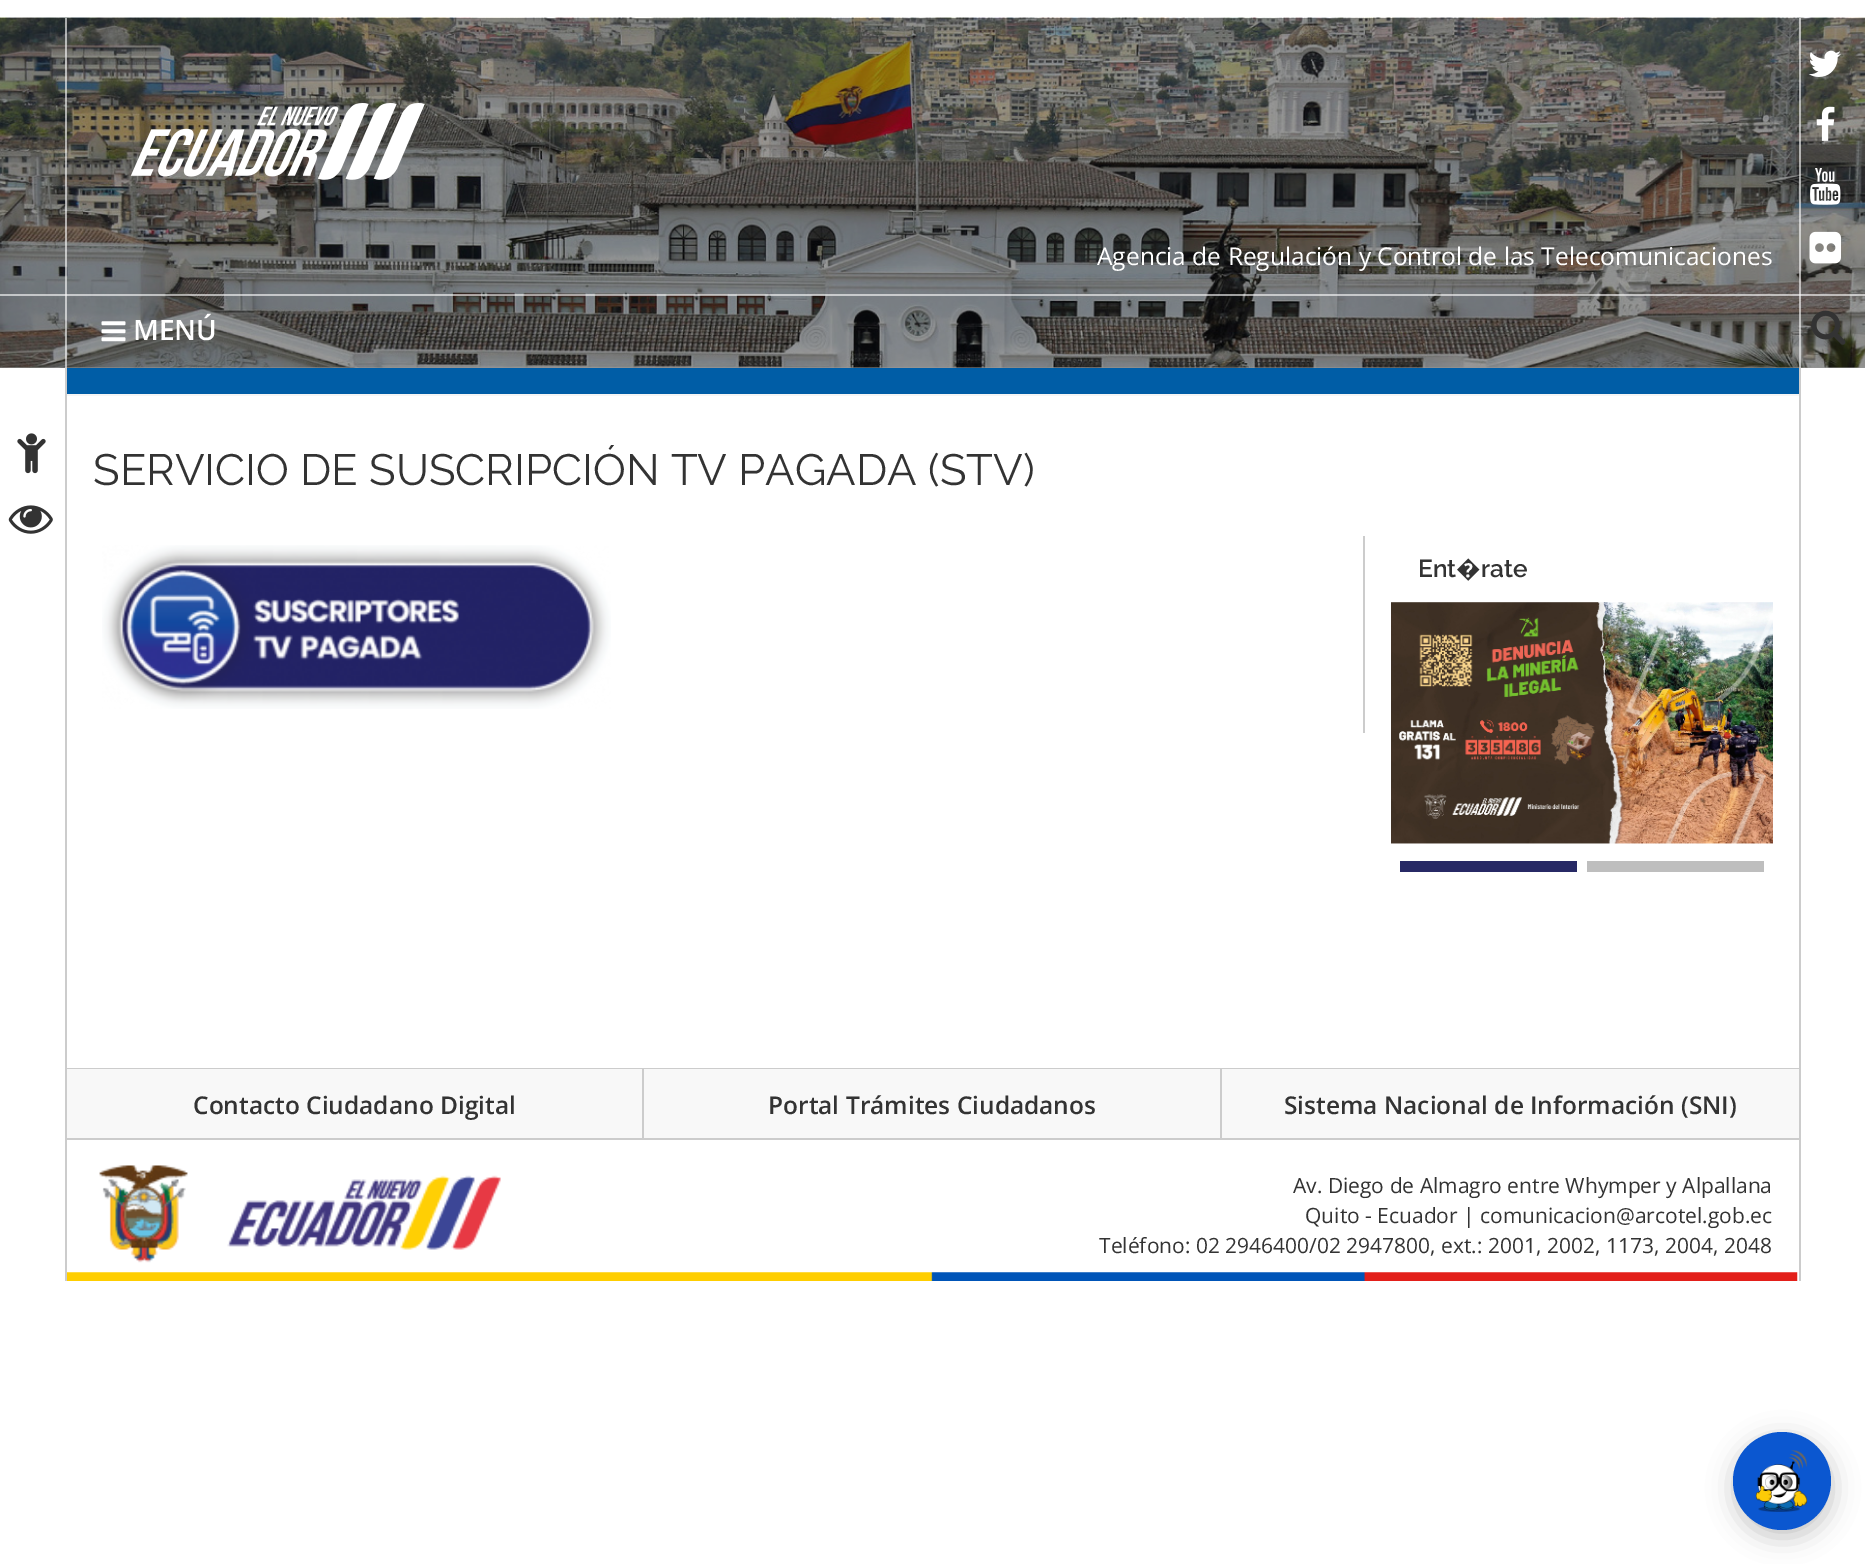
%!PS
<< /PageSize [1865 1564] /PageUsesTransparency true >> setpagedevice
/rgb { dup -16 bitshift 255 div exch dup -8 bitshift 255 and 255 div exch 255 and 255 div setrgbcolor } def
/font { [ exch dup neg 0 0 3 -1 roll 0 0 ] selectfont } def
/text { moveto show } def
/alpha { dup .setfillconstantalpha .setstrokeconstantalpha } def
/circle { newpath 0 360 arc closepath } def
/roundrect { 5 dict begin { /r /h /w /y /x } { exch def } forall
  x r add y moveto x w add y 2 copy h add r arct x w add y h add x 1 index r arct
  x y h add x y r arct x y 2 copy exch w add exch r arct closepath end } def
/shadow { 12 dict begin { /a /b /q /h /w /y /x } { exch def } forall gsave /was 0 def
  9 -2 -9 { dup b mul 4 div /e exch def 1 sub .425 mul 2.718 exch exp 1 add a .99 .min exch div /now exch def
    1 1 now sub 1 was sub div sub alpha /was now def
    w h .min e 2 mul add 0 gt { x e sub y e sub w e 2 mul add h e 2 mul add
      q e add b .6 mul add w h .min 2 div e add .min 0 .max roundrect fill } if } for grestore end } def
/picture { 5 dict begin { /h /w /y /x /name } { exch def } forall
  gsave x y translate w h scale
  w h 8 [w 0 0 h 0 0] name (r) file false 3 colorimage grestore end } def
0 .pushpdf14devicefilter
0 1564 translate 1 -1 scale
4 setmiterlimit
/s1 { /OpenSans-Regular 24.5 font 16#FFFFFF rgb } def
/s2 { /OpenSans-SemiBold 28 font 16#FFFFFF rgb } def
/s3 { /Raleway-Thin 43.75 font 16#333333 rgb } def
/s4 { /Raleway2-Thin 24.5 font 16#333333 rgb } def
/s5 { /NotoSans-Bold 24.5 font 16#333333 rgb } def
/s6 { /OpenSans-SemiBold 24.5 font 16#333333 rgb } def
/s7 { /OpenSans-Regular 21 font 16#333333 rgb } def
16#FFFFFF rgb
0 0 1865 1564 rectfill
16#999999 rgb
0 367 1865 1 rectfill
(pic1.raw) 0 17 1865 351 picture
0.6 alpha
16#FFFFFF rgb
1799 18 2 350 rectfill
65 18 2 350 rectfill
1 alpha
(pic2.raw) 130 103 295 77 picture
(pic3.raw) 1808 50 33 27 picture
(pic4.raw) 1816 106 19 35 picture
(pic5.raw) 1810 168 31 37 picture
(pic6.raw) 1809 231 32 33 picture
s1
(Agencia de Regulación y Control de las Telecomunicaciones) 1097 265 text
0.6 alpha
0 294 1865 2 rectfill
1 alpha
(pic7.raw) 101 321 25 21 picture
s2
(MENÚ) 133 340 text
(pic8.raw) 1811 310 35 35 picture
(pic9.raw) 17 433 29 41 picture
(pic10.raw) 8 505 45 29 picture
16#005DA6 rgb
67 368 1732 26 rectfill
16#F5F5F5 rgb
67 394 1732 2 rectfill
s3
(SERVICIO DE SUSCRIPCIÓN TV PAGADA \(STV\)) 93 485 text
16#CCCCCC rgb
1363 536 2 197 rectfill
(pic11.raw) 102 545 509 164 picture
s4
(Ent) 1418 577 text
s5
(�) 1456 577 text
s4
(rate) 1481 577 text
(pic12.raw) 1391 602 382 242 picture
16#272965 rgb
1400 861 177 11 rectfill
16#BEBEBE rgb
1587 861 177 11 rectfill
(pic13.raw) 67 1272 1731 9 picture
16#CCCCCC rgb
1799 368 2 913 rectfill
65 368 2 913 rectfill
67 1068 1732 1 rectfill
67 1138 1732 2 rectfill
642 1069 2 69 rectfill
16#F8F8F8 rgb
67 1069 575 69 rectfill
s6
(Contacto Ciudadano Digital) 193 1114 text
16#CCCCCC rgb
1220 1069 2 69 rectfill
16#F8F8F8 rgb
644 1069 576 69 rectfill
s6
(Portal Trámites Ciudadanos) 768 1114 text
16#F8F8F8 rgb
1222 1069 577 69 rectfill
s6
(Sistema Nacional de Información \(SNI\)) 1284 1114 text
(pic14.raw) 99 1165 402 98 picture
s7
(Av. Diego de Almagro entre Whymper y Alpallana) 1293 1193 text
(Quito - Ecuador | comunicacion@arcotel.gob.ec) 1305 1223 text
(Teléfono: 02 2946400/02 2947800, ext.: 2001, 2002, 1173, 2004, 2048) 1099 1253 text
16#000000 rgb
1734 1439 98 98 49 13 0.24 shadow
16#0B57D0 rgb
1782 1481 49 circle fill
(pic15.raw) 1755 1450 53 62 picture
.poppdf14devicefilter showpage
